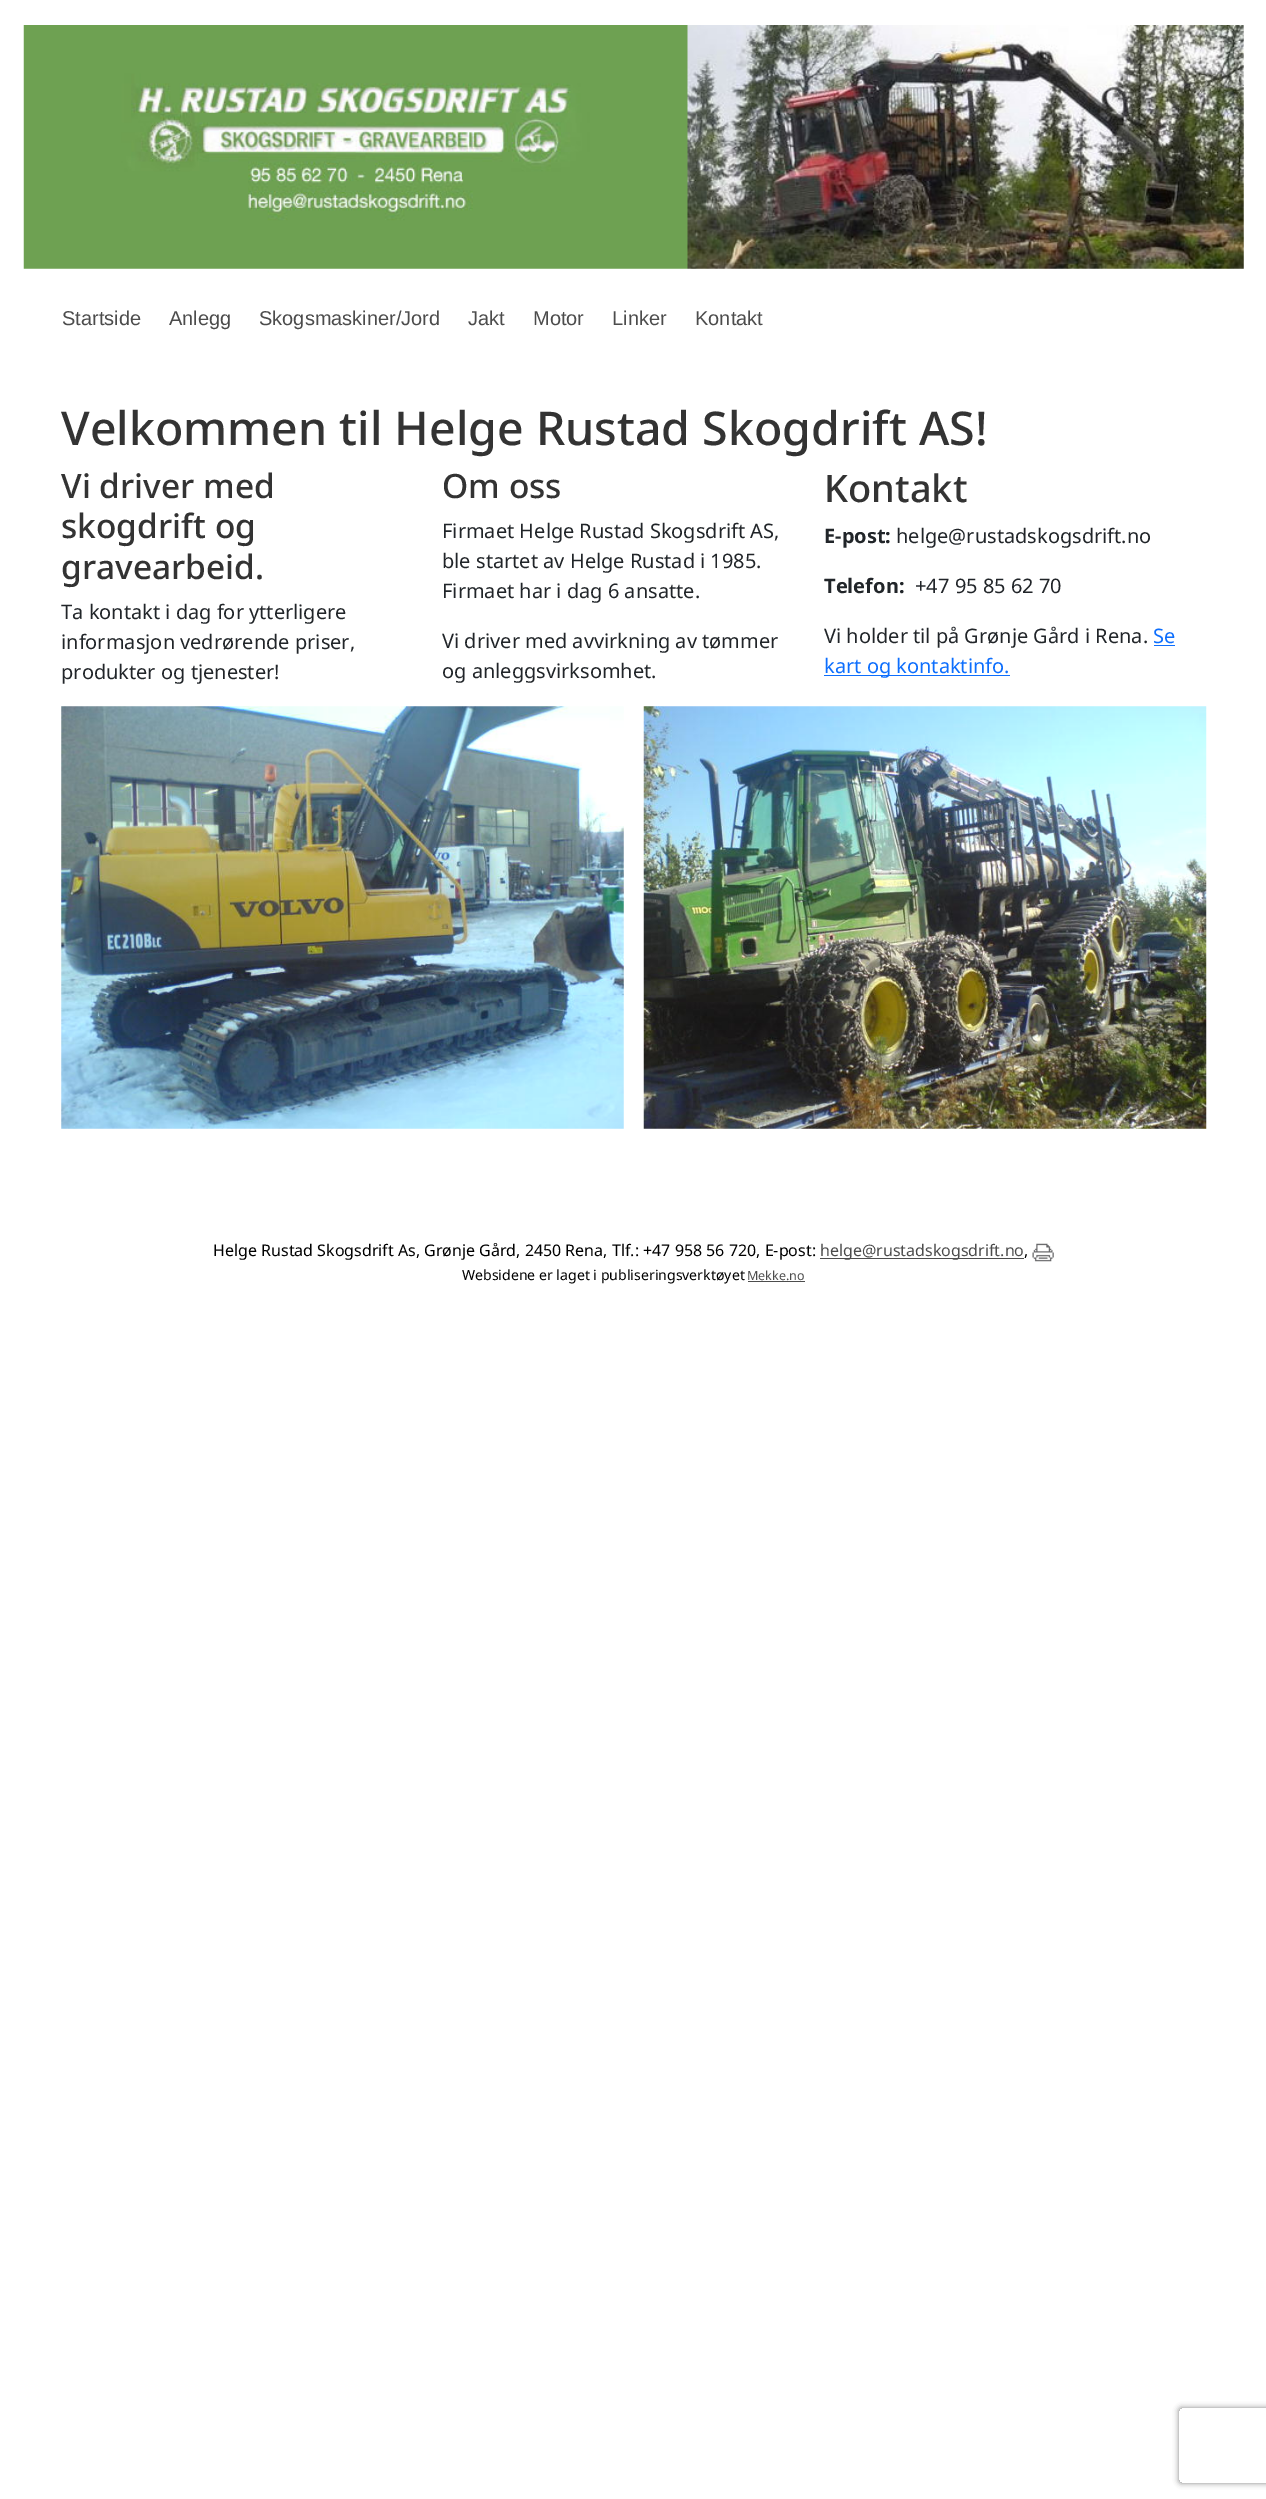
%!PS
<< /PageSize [1266 2499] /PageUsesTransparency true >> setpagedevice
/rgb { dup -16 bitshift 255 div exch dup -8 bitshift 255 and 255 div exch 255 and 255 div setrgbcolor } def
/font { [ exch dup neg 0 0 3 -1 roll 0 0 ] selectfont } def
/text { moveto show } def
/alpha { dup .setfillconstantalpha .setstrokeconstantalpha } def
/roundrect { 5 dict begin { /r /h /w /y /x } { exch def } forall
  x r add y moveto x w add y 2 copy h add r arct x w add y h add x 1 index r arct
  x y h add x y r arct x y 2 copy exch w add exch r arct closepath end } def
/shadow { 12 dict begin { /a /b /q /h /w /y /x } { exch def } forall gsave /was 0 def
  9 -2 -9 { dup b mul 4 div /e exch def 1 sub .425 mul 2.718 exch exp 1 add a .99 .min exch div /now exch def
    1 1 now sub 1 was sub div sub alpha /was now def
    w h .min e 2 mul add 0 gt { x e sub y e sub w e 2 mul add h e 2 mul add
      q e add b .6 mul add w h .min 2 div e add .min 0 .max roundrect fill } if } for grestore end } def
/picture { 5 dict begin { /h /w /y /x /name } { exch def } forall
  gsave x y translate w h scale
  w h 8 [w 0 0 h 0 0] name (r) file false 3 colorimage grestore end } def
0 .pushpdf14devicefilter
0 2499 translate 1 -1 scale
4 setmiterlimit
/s1 { /LiberationSans-Regular 20 font 16#4C4C4C rgb } def
/s2 { /NotoSans-Medium 46.5 font 16#333333 rgb } def
/s3 { /NotoSans-Medium 33.5 font 16#333333 rgb } def
/s4 { /NotoSans-Regular 20 font 16#212529 rgb } def
/s5 { /NotoSans-Medium 38 font 16#333333 rgb } def
/s6 { /NotoSans-Bold 20 font 16#212529 rgb } def
/s7 { /NotoSans-Regular 20 font 16#0D6EFD rgb } def
/s8 { /NotoSans-Regular 16 font 16#000000 rgb } def
/s9 { /NotoSans-Regular 16 font 16#4C4C4C rgb } def
/s10 { /NotoSans-Regular 14.1 font 16#000000 rgb } def
/s11 { /NotoSans-Regular 12.5 font 16#4C4C4C rgb } def
16#FFFFFF rgb
0 0 1266 2499 rectfill
(pic1.raw) 23 25 1221 244 picture
s1
(Startside) 62 325 text
(Anlegg) 169 325 text
(Skogsmaskiner/Jord) 259 325 text
(Jakt) 468 325 text
(Motor) 533 325 text
(Linker) 612 325 text
(Kontakt) 695 325 text
s2
(Velkommen til Helge Rustad Skogdrift AS!) 61 445 text
s3
(Vi driver med) 61 498 text
(skogdrift og) 61 538 text
(gravearbeid.) 61 579 text
s4
(Ta kontakt i dag for ytterligere) 61 619 text
(informasjon vedrørende priser,) 61 649 text
(produkter og tjenester!) 61 679 text
s3
(Om oss) 442 498 text
s4
(Firmaet Helge Rustad Skogsdrift AS,) 442 538 text
(ble startet av Helge Rustad i 1985.) 442 568 text
(Firmaet har i dag 6 ansatte.) 442 598 text
(Vi driver med avvirkning av tømmer) 442 648 text
(og anleggsvirksomhet.) 442 678 text
s5
(Kontakt) 824 502 text
s6
(E-post:) 824 543 text
s4
(helge@rustadskogsdrift.no) 896 543 text
s6
(Telefon:) 824 593 text
s4
(+47 95 85 62 70) 915 593 text
(Vi holder til på Grønje Gård i Rena.) 824 643 text
s7
(Se) 1153 643 text
1154 645 21 1 rectfill
824 675 186 1 rectfill
(kart og kontaktinfo.) 824 673 text
(pic2.raw) 61 706 563 423 picture
(pic3.raw) 643 706 564 423 picture
s8
(Helge Rustad Skogsdrift As, Grønje Gård, 2450 Rena, Tlf.: +47 958 56 720, E-post:) 213 1256 text
16#4D4D4D rgb
820 1258 204 1 rectfill
s9
(helge@rustadskogsdrift.no) 820 1256 text
s8
(,) 1024 1256 text
(pic4.raw) 1032 1243 22 19 picture
s10
(Websidene er laget i publiseringsverktøyet) 462 1280 text
s11
(Mekke.no) 747 1280 text
16#4D4D4D rgb
748 1281 57 1 rectfill
gsave
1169 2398 moveto 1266 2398 lineto 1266 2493 lineto 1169 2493 lineto closepath 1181.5 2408 moveto 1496.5 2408 lineto 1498 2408 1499 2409 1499 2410.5 curveto 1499 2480.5 lineto 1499 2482 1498 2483 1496.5 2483 curveto 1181.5 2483 lineto 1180 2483 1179 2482 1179 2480.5 curveto 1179 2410.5 lineto 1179 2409 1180 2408 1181.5 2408 curveto closepath eoclip newpath
16#808080 rgb
1179 2408 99 75 2.5 3 1 shadow
grestore
.poppdf14devicefilter showpage
